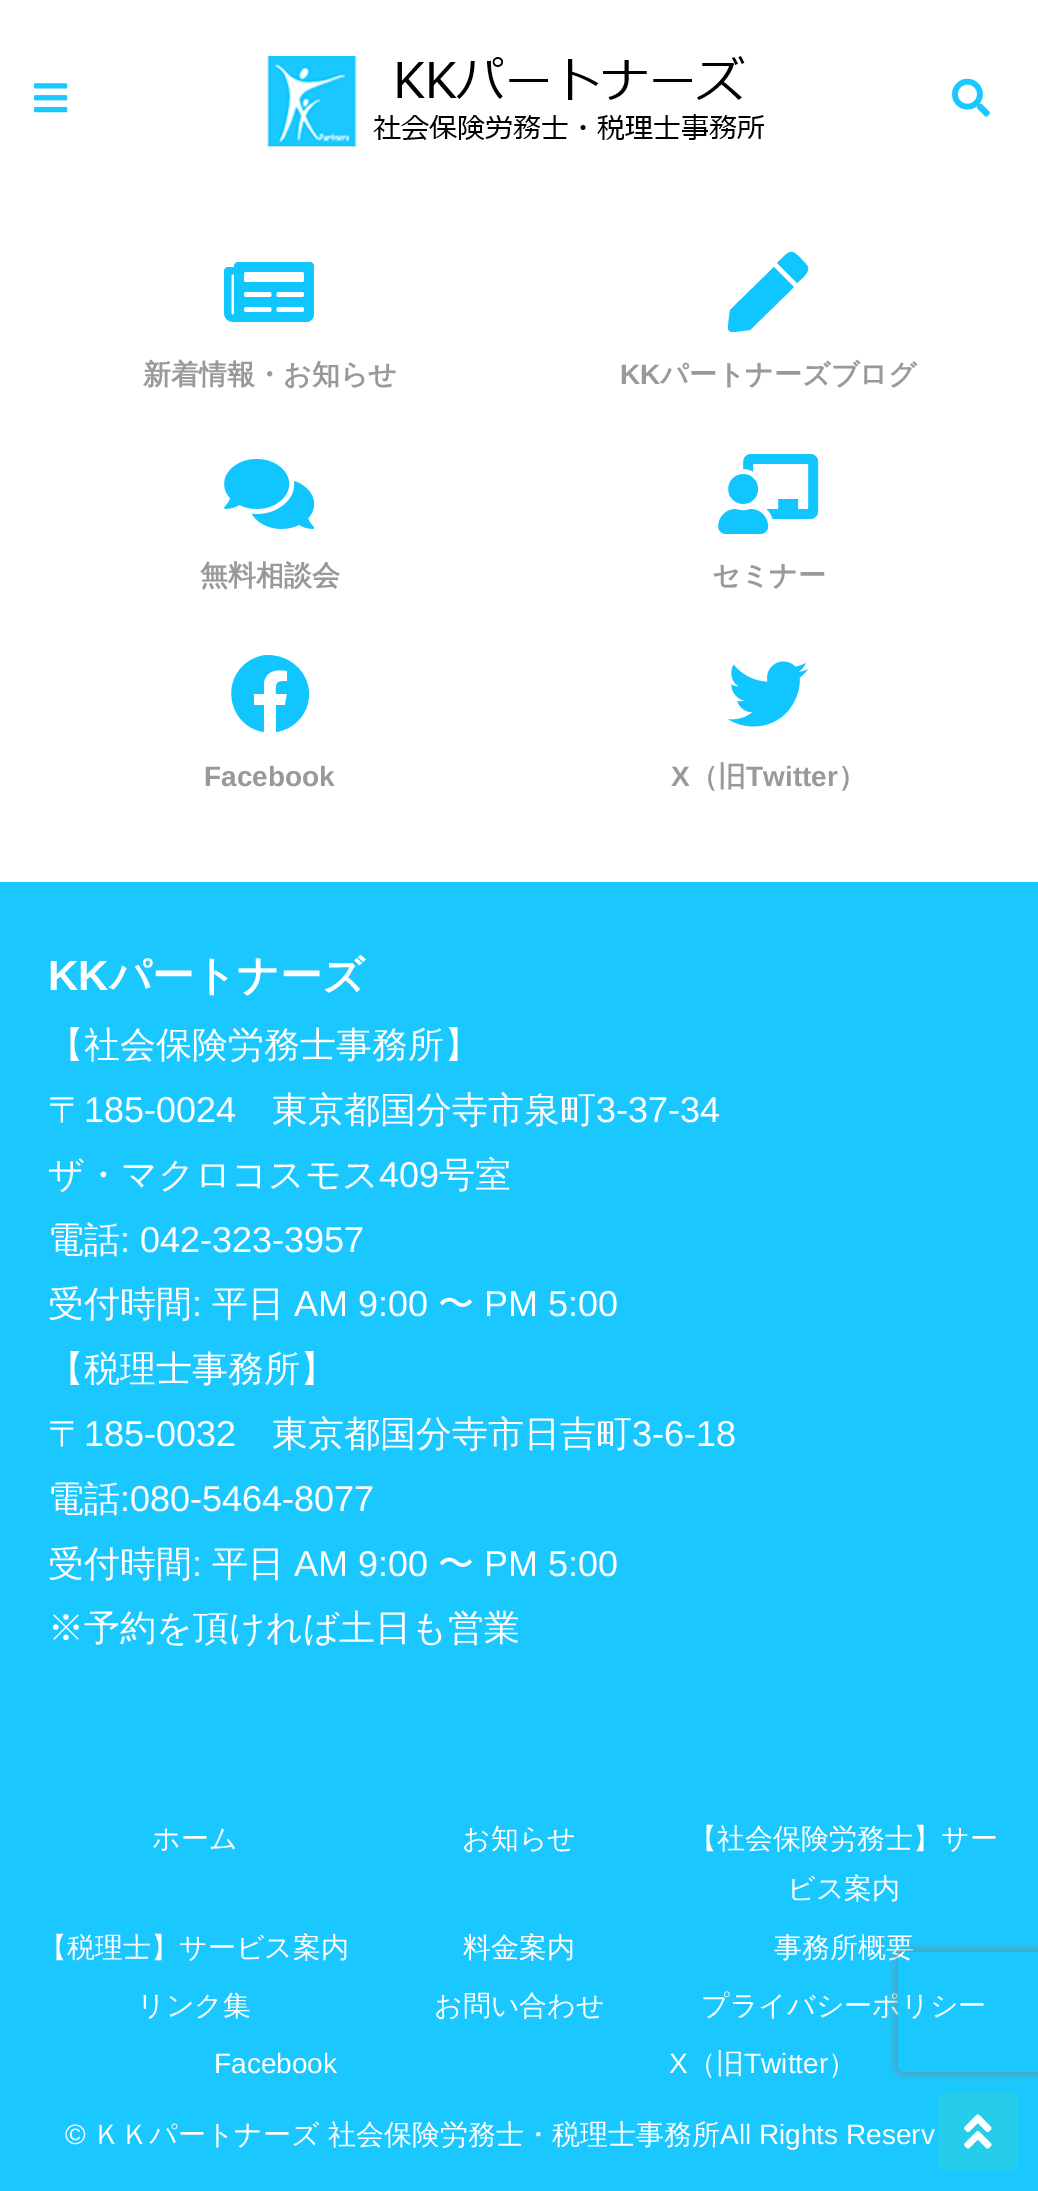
%!PS
<< /PageSize [1038 2191] /PageUsesTransparency true >> setpagedevice
/rgb { dup -16 bitshift 255 div exch dup -8 bitshift 255 and 255 div exch 255 and 255 div setrgbcolor } def
/font { [ exch dup neg 0 0 3 -1 roll 0 0 ] selectfont } def
/text { moveto show } def
/alpha { dup .setfillconstantalpha .setstrokeconstantalpha } def
/roundrect { 5 dict begin { /r /h /w /y /x } { exch def } forall
  x r add y moveto x w add y 2 copy h add r arct x w add y h add x 1 index r arct
  x y h add x y r arct x y 2 copy exch w add exch r arct closepath end } def
/shadow { 12 dict begin { /a /b /q /h /w /y /x } { exch def } forall gsave /was 0 def
  9 -2 -9 { dup b mul 4 div /e exch def 1 sub .425 mul 2.718 exch exp 1 add a .99 .min exch div /now exch def
    1 1 now sub 1 was sub div sub alpha /was now def
    w h .min e 2 mul add 0 gt { x e sub y e sub w e 2 mul add h e 2 mul add
      q e add b .6 mul add w h .min 2 div e add .min 0 .max roundrect fill } if } for grestore end } def
/picture { 5 dict begin { /h /w /y /x /name } { exch def } forall
  gsave x y translate w h scale
  w h 8 [w 0 0 h 0 0] name (r) file false 3 colorimage grestore end } def
0 .pushpdf14devicefilter
0 2191 translate 1 -1 scale
4 setmiterlimit
/s1 { /WenQuanYiZenHei-Bold 28 font 16#999999 rgb } def
/s2 { /LiberationSans-Bold 28 font 16#999999 rgb } def
/s3 { /LiberationSans-Bold 42 font 16#FFFFFF rgb } def
/s4 { /WenQuanYiZenHei-Bold 42 font 16#FFFFFF rgb } def
/s5 { /WenQuanYiZenHei-Medium 36 font 16#FFFFFF rgb } def
/s6 { /LiberationSans-Regular 36 font 16#FFFFFF rgb } def
/s7 { /WenQuanYiZenHei-Medium 28 font 16#FFFFFF rgb } def
/s8 { /LiberationSans-Regular 28 font 16#FFFFFF rgb } def
16#FFFFFF rgb
0 0 1038 2191 rectfill
(pic1.raw) 34 83 34 30 picture
(pic2.raw) 267 56 497 91 picture
(pic3.raw) 952 78 38 39 picture
(pic4.raw) 224 262 90 60 picture
s1
(新着情報・お知らせ) 143 384 text
16#11C6FF rgb
774 267 moveto 794 287 lineto 750 330 lineto 724 333 727 336 730 310 curveto closepath 806 264 moveto 813 271 801 279 797 283 curveto 777 263 lineto 792 248 791 248 806 264 curveto closepath fill
s2
(KK) 620 384 text
s1
(パートナーズブログ) 660 384 text
(pic5.raw) 224 459 91 70 picture
(無料相談会) 200 585 text
(pic6.raw) 718 454 101 80 picture
(セミナー) 712 585 text
16#11C6FF rgb
309 694 moveto 309 713 295 729 276 732 curveto 276 705 lineto 285 705 lineto 287 694 lineto 276 694 lineto 276 683 275 681 287 681 curveto 287 671 lineto 278 669 266 670 264 682 curveto 264 694 lineto 254 694 lineto 254 705 lineto 264 705 lineto 264 732 lineto 231 727 220 685 245 664 curveto 251 659 258 656 266 655 curveto 275 655 284 657 291 662 curveto 302 669 309 681 309 694 curveto closepath fill
s2
(Facebook) 204 786 text
(pic7.raw) 728 661 80 66 picture
(X) 671 786 text
s1
(（旧) 690 786 text
s2
(Twitter) 746 786 text
s1
(）) 838 786 text
16#1AC8FF rgb
0 882 1038 1309 rectfill
s3
(KK) 48 990 text
s4
(パートナーズ) 109 990 text
s5
(【社会保険労務士事務所】) 48 1057 text
(〒) 48 1122 text
s6
(185-0024) 84 1122 text
s5
(東京都国分寺市泉町) 272 1122 text
s6
(3-37-34) 596 1122 text
s5
(ザ・マクロコスモス) 48 1187 text
s6
(409) 379 1187 text
s5
(号室) 439 1187 text
(電話) 48 1252 text
s6
(: 042-323-3957) 120 1252 text
s5
(受付時間) 48 1316 text
s6
(:) 192 1316 text
s5
(平日) 212 1316 text
s6
(AM 9:00) 294 1316 text
s5
(〜) 438 1316 text
s6
(PM 5:00) 484 1316 text
s5
(【税理士事務所】) 48 1381 text
(〒) 48 1446 text
s6
(185-0032) 84 1446 text
s5
(東京都国分寺市日吉町) 272 1446 text
s6
(3-6-18) 632 1446 text
s5
(電話) 48 1511 text
s6
(:080-5464-8077) 120 1511 text
s5
(受付時間) 48 1576 text
s6
(:) 192 1576 text
s5
(平日) 212 1576 text
s6
(AM 9:00) 294 1576 text
s5
(〜) 438 1576 text
s6
(PM 5:00) 484 1576 text
s5
(※予約を頂ければ土日も営業) 48 1640 text
s7
(ホーム) 152 1848 text
(お知らせ) 462 1848 text
(【社会保険労務士】サー) 689 1848 text
(ビス案内) 787 1898 text
(【税理士】サービス案内) 39 1957 text
(料金案内) 463 1957 text
(事務所概要) 774 1957 text
(リンク集) 137 2015 text
(お問い合わせ) 434 2015 text
(プライバシーポリシー) 701 2015 text
s8
(Facebook) 214 2073 text
(X) 669 2073 text
s7
(（旧) 688 2073 text
s8
(Twitter) 744 2073 text
s7
(）) 828 2073 text
s8
(©) 65 2144 text
s7
(ＫＫパートナーズ) 93 2144 text
(社会保険労務士・税理士事務所) 328 2144 text
s8
(All Rights Reserv) 720 2144 text
16#25CDEA rgb
938 2092 80 80 10 roundrect fill
(pic8.raw) 964 2114 28 35 picture
gsave
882 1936 moveto 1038 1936 lineto 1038 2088 lineto 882 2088 lineto closepath 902 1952 moveto 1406 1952 lineto 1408 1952 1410 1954 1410 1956 curveto 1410 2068 lineto 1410 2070 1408 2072 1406 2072 curveto 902 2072 lineto 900 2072 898 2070 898 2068 curveto 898 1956 lineto 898 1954 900 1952 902 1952 curveto closepath eoclip newpath
16#808080 rgb
898 1952 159 120 4 5 1 shadow
grestore
.poppdf14devicefilter showpage
